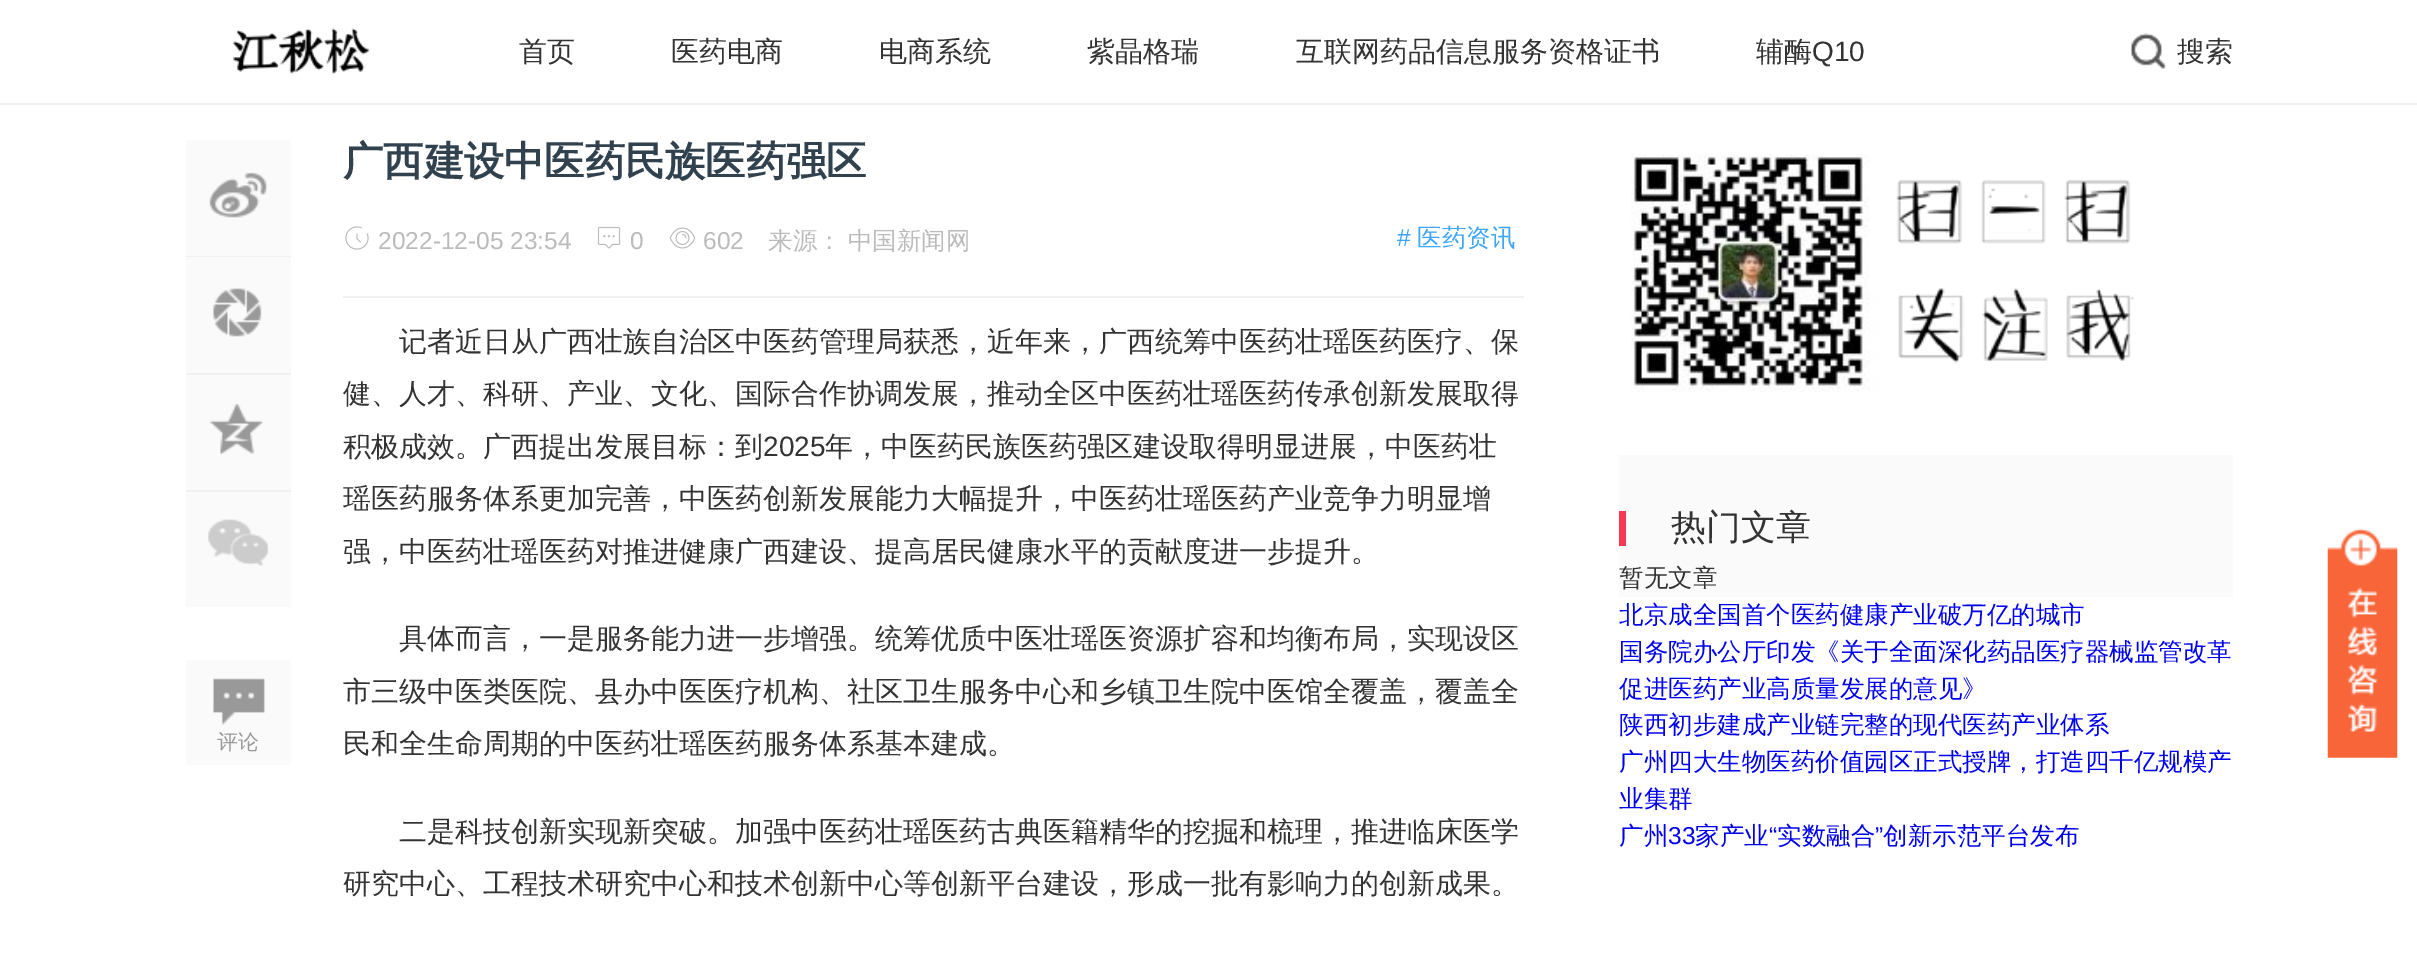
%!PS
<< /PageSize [2417 957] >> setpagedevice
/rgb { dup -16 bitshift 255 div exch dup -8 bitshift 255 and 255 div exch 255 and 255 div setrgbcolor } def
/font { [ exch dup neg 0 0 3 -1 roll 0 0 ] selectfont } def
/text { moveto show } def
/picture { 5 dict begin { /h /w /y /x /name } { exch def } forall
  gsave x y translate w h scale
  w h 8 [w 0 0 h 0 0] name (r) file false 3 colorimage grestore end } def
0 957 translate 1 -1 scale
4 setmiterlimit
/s1 { /WenQuanYiZenHei-Medium 28 font 16#333333 rgb } def
/s2 { /LiberationSans-Regular 28 font 16#333333 rgb } def
/s3 { /WenQuanYiZenHei-Medium 21 font 16#999999 rgb } def
/s4 { /WenQuanYiZenHei-Bold 40.25 font 16#31424E rgb } def
/s5 { /LiberationSans-Regular 24.5 font 16#BBBBBB rgb } def
/s6 { /LiberationSans-Regular 24.5 font 16#3CA5F6 rgb } def
/s7 { /WenQuanYiZenHei-Medium 24.5 font 16#3CA5F6 rgb } def
/s8 { /WenQuanYiZenHei-Medium 35 font 16#333333 rgb } def
/s9 { /WenQuanYiZenHei-Medium 24.5 font 16#333333 rgb } def
/s10 { /WenQuanYiZenHei-Medium 24.5 font 16#0000EE rgb } def
/s11 { /LiberationSans-Regular 24.5 font 16#0000EE rgb } def
16#FFFFFF rgb
0 0 2417 957 rectfill
16#F0F0F0 rgb
0 103 2417 2 rectfill
(pic1.raw) 232 28 138 46 picture
s1
(首页) 519 61 text
(医药电商) 671 61 text
(电商系统) 879 61 text
(紫晶格瑞) 1087 61 text
(互联网药品信息服务资格证书) 1296 61 text
(辅酶) 1756 61 text
s2
(Q10) 1812 61 text
(pic2.raw) 2130 33 36 36 picture
s1
(搜索) 2177 61 text
16#FAFAFA rgb
186 140 105 116 rectfill
16#F0F0F0 rgb
186 256 105 1 rectfill
(pic3.raw) 209 172 58 46 picture
16#FAFAFA rgb
186 257 105 116 rectfill
16#F0F0F0 rgb
186 373 105 2 rectfill
(pic4.raw) 213 288 49 49 picture
16#FAFAFA rgb
186 375 105 115 rectfill
16#F0F0F0 rgb
186 490 105 2 rectfill
(pic5.raw) 209 404 54 50 picture
16#FAFAFA rgb
186 492 105 115 rectfill
(pic6.raw) 208 519 61 47 picture
186 660 105 105 rectfill
(pic7.raw) 213 678 52 47 picture
s3
(评论) 217 749 text
s4
(广西建设中医药民族医药强区) 343 175 text
(pic8.raw) 345 226 24 24 picture
s5
(2022-12-05 23:54) 378 249 text
(pic9.raw) 597 226 24 23 picture
(0) 630 249 text
(pic10.raw) 669 227 27 22 picture
(602) 703 249 text
/WenQuanYiZenHei-Medium 24.5 font
768 249 moveto -1 0 32 (来源： 中国新闻网) widthshow
s6
(#) 1397 246 text
s7
(医药资讯) 1417 246 text
16#F0F0F0 rgb
343 296 1181 2 rectfill
s1
(记者近日从广西壮族自治区中医药管理局获悉，近年来，广西统筹中医药壮瑶医药医疗、保) 399 351 text
(健、人才、科研、产业、文化、国际合作协调发展，推动全区中医药壮瑶医药传承创新发展取得) 343 403 text
(积极成效。广西提出发展目标：到) 343 456 text
s2
(2025) 763 456 text
s1
(年，中医药民族医药强区建设取得明显进展，中医药壮) 825 456 text
(瑶医药服务体系更加完善，中医药创新发展能力大幅提升，中医药壮瑶医药产业竞争力明显增) 343 508 text
(强，中医药壮瑶医药对推进健康广西建设、提高居民健康水平的贡献度进一步提升。) 343 561 text
(具体而言，一是服务能力进一步增强。统筹优质中医壮瑶医资源扩容和均衡布局，实现设区) 399 648 text
(市三级中医类医院、县办中医医疗机构、社区卫生服务中心和乡镇卫生院中医馆全覆盖，覆盖全) 343 701 text
(民和全生命周期的中医药壮瑶医药服务体系基本建成。) 343 753 text
(二是科技创新实现新突破。加强中医药壮瑶医药古典医籍精华的挖掘和梳理，推进临床医学) 399 841 text
(研究中心、工程技术研究中心和技术创新中心等创新平台建设，形成一批有影响力的创新成果。) 343 893 text
(pic11.raw) 1631 154 503 238 picture
16#FAFAFA rgb
1619 455 614 142 rectfill
16#F63756 rgb
1619 511 7 35 rectfill
s8
(热门文章) 1671 539 text
s9
(暂无文章) 1619 586 text
s10
(北京成全国首个医药健康产业破万亿的城市) 1619 623 text
(国务院办公厅印发《关于全面深化药品医疗器械监管改革) 1619 660 text
(促进医药产业高质量发展的意见》) 1619 697 text
(陕西初步建成产业链完整的现代医药产业体系) 1619 733 text
(广州四大生物医药价值园区正式授牌，打造四千亿规模产) 1619 770 text
(业集群) 1619 807 text
(广州) 1619 844 text
s11
(33) 1668 844 text
s10
(家产业) 1695 844 text
s11
(“) 1769 844 text
s10
(实数融合) 1777 844 text
s11
(”) 1875 844 text
s10
(创新示范平台发布) 1883 844 text
(pic12.raw) 2327 528 71 230 picture
showpage
